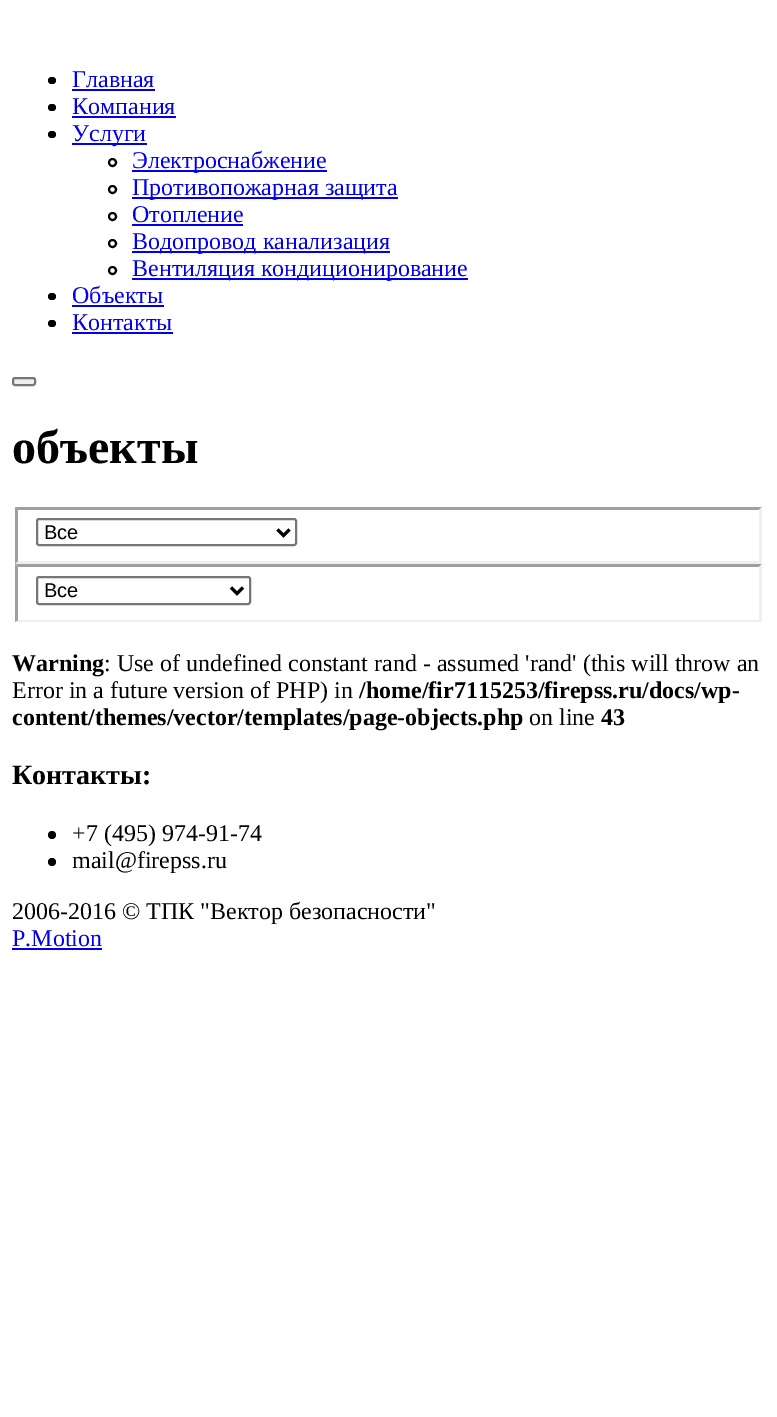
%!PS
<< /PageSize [777 1417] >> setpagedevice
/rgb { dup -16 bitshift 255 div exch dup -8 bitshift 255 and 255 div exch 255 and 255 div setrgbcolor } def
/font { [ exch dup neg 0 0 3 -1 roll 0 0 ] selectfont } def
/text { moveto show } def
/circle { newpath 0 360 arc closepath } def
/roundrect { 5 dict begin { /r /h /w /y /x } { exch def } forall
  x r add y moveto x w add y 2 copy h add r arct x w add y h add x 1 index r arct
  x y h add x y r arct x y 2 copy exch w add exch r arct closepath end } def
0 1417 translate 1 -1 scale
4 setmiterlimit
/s1 { /LiberationSerif-Regular 24 font 16#0000EE rgb } def
/s2 { /LiberationSerif-Bold 48 font 16#000000 rgb } def
/s3 { /LiberationSans-Regular 20 font 16#000000 rgb } def
/s4 { /LiberationSerif-Bold 24 font 16#000000 rgb } def
/s5 { /LiberationSerif-Regular 24 font 16#000000 rgb } def
/s6 { /LiberationSerif-Bold 28 font 16#000000 rgb } def
16#FFFFFF rgb
0 0 777 1417 rectfill
16#000000 rgb
48 77 8 7 3.5 roundrect fill
s1
(Главная) 72 87 text
72 89 83 2 rectfill
16#000000 rgb
48 104 8 7 3.5 roundrect fill
s1
(Компания) 72 114 text
72 116 104 2 rectfill
16#000000 rgb
48 131 8 7 3.5 roundrect fill
16#0000EE rgb
72 143 75 2 rectfill
(Услуги) 72 141 text
16#000000 rgb
2 setlinewidth
112.5 162.5 3.5 circle stroke
16#0000EE rgb
132 170 195 2 rectfill
(Электроснабжение) 132 168 text
16#000000 rgb
112.5 189.5 3.5 circle stroke
16#0000EE rgb
132 197 266 2 rectfill
(Противопожарная защита) 132 195 text
16#000000 rgb
112.5 216.5 3.5 circle stroke
s1
(Отопление) 132 222 text
132 224 111 2 rectfill
16#000000 rgb
112.5 243.5 3.5 circle stroke
16#0000EE rgb
132 251 258 2 rectfill
(Водопровод канализация) 132 249 text
16#000000 rgb
112.5 270.5 3.5 circle stroke
16#0000EE rgb
132 278 336 2 rectfill
(Вентиляция кондиционирование) 132 276 text
16#000000 rgb
48 293 8 7 3.5 roundrect fill
s1
(Объекты) 72 303 text
72 305 92 2 rectfill
16#000000 rgb
48 320 8 7 3.5 roundrect fill
s1
(Контакты) 72 330 text
72 332 101 2 rectfill
16#EFEFEF rgb
13 378 22 7 2 roundrect gsave fill grestore
16#767676 rgb
stroke
s2
(объекты) 12 463 text
16#9F9F9F rgb
15 507 moveto 762 507 lineto 759 510 lineto 18 510 lineto closepath fill
16#EFEFEF rgb
762 507 moveto 762 564 lineto 759 561 lineto 759 510 lineto closepath fill
762 564 moveto 15 564 lineto 18 561 lineto 759 561 lineto closepath fill
16#9F9F9F rgb
15 564 moveto 15 507 lineto 18 510 lineto 18 561 lineto closepath fill
16#767676 rgb
37 519 259 26 2 roundrect stroke
16#000000 rgb
3 setlinewidth
277.5 529.5 moveto 283.5 535.5 lineto 289.5 529.5 lineto stroke
s3
(Все) 44 539 text
16#9F9F9F rgb
15 564 moveto 762 564 lineto 759 567 lineto 18 567 lineto closepath fill
16#EFEFEF rgb
762 564 moveto 762 622 lineto 759 620 lineto 759 567 lineto closepath fill
762 622 moveto 15 622 lineto 18 620 lineto 759 620 lineto closepath fill
16#9F9F9F rgb
15 622 moveto 15 564 lineto 18 567 lineto 18 620 lineto closepath fill
16#767676 rgb
2 setlinewidth
37 577 213 27 2 roundrect stroke
16#000000 rgb
3 setlinewidth
231 587.5 moveto 237 593.5 lineto 243 587.5 lineto stroke
(Все) 44 597 text
s4
(Warning) 12 671 text
s5
(: Use of undefined constant rand - assumed 'rand' \(this will throw an) 104 671 text
(Error in a future version of PHP\) in) 12 698 text
s4
(/home/fir7115253/firepss.ru/docs/wp-) 359 698 text
(content/themes/vector/templates/page-objects.php) 12 725 text
s5
(on line) 529 725 text
s4
(43) 601 725 text
s6
(Контакты:) 12 784 text
52 835 4 circle fill
s5
(+7 \(495\) 974-91-74) 72 841 text
52 862 4 circle fill
(mail@firepss.ru) 72 868 text
(2006-2016 © ТПК "Вектор безопасности") 12 919 text
s1
(P.Motion) 12 946 text
12 948 90 2 rectfill
showpage
